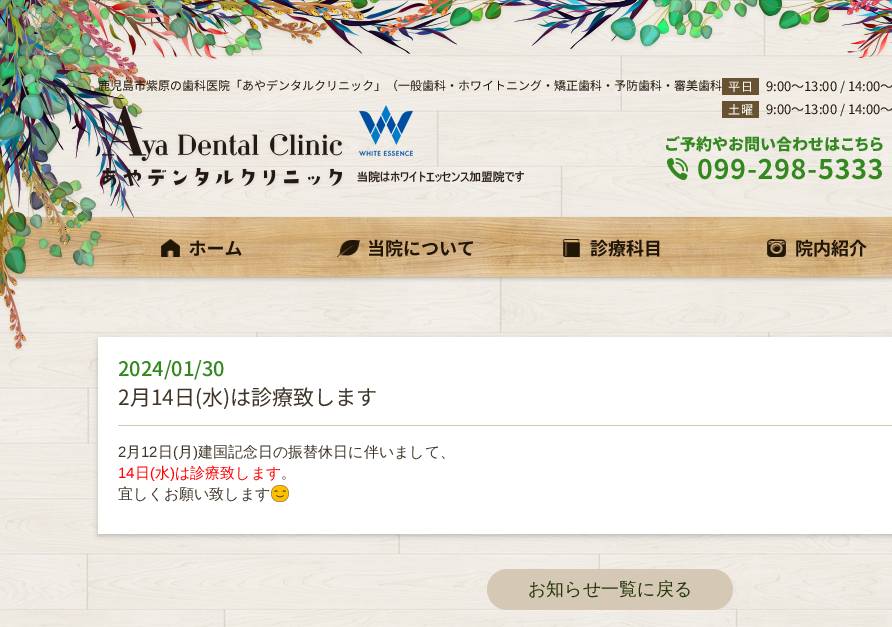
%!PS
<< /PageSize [892 627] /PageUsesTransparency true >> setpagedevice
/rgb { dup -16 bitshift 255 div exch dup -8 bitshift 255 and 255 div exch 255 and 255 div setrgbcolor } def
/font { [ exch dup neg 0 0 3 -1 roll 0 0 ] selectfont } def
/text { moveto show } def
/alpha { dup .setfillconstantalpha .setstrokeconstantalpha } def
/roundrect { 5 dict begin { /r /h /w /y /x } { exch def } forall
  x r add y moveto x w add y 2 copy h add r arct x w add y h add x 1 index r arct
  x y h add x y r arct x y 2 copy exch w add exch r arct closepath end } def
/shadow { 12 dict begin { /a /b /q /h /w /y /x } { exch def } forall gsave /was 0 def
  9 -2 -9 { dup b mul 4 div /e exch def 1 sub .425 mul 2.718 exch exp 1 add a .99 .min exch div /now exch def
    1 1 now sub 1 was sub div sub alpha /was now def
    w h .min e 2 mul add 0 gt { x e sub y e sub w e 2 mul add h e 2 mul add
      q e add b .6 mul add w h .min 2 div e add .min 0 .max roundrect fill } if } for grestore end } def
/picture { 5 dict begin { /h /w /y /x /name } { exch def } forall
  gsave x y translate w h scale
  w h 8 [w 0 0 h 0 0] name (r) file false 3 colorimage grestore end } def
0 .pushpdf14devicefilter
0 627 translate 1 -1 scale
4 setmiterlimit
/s1 { /NotoSansJP-Bold 18 font 16#221607 rgb } def
/s2 { /NotoSansJP-Regular 12 font 16#221607 rgb } def
/s3 { /NotoSansJP-Regular 13 font 16#221607 rgb } def
/s4 { /NotoSansJP-Medium 20 font 16#33881F rgb } def
/s5 { /NotoSansJP-Regular 21 font 16#3F3528 rgb } def
/s6 { /LiberationSans-Regular 15 font 16#3F3528 rgb } def
/s7 { /WenQuanYiZenHei-Medium 15 font 16#3F3528 rgb } def
/s8 { /LiberationSans-Regular 15 font 16#FF0000 rgb } def
/s9 { /WenQuanYiZenHei-Medium 15 font 16#FF0000 rgb } def
/s10 { /WenQuanYiZenHei-Medium 18 font 16#243708 rgb } def
16#FFFFFF rgb
0 0 892 627 rectfill
(pic1.raw) 0 0 892 627 picture
(pic2.raw) 0 0 892 60 picture
(pic6.raw) 0 216 892 66 picture
(pic7.raw) 161 239 19 18 picture
s1
(ホーム) 189 255 text
16#000000 rgb
98 339 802 197 0 2.5 0.2 shadow
16#FFFFFF rgb
98 337 794 197 rectfill
(pic3.raw) 0 0 247 351 picture
s2
(鹿児島市紫原の歯科医院「あやデンタルクリニック」（一般歯科・ホワイトニング・矯正歯科・予防歯科・審美歯科) 98 90 text
16#695231 rgb
722 78 37 17 rectfill
16#FFFFFF rgb
728 91 moveto 1 0 (平日) ashow
s3
(9:00～13:00 / 14:00～) 766 91 text
16#695231 rgb
722 101 37 17 rectfill
/NotoSansJP-Regular 12 font
16#FFFFFF rgb
728 114 moveto 1 0 (土曜) ashow
s3
(9:00～13:00 / 14:00～) 766 114 text
(pic4.raw) 102 105 423 83 picture
(pic5.raw) 666 136 217 44 picture
(pic8.raw) 337 240 23 17 picture
s1
(当院について) 367 255 text
(pic9.raw) 563 239 17 18 picture
(診療科目) 590 255 text
(pic10.raw) 767 239 19 18 picture
(院内紹介) 795 255 text
s4
(2024/01/30) 118 376 text
16#D5C9B6 rgb
118 425 774 1 rectfill
s5
(2月14日\(水\)は診療致します) 118 405 text
s6
(2) 118 457 text
s7
(月) 126 457 text
s6
(12) 141 457 text
s7
(日) 158 457 text
s6
(\() 173 457 text
s7
(月) 178 457 text
s6
(\)) 193 457 text
s7
(建国記念日の振替休日に伴いまして、) 198 457 text
s8
(14) 118 478 text
s9
(日) 135 478 text
s8
(\() 150 478 text
s9
(水) 155 478 text
s8
(\)) 170 478 text
s9
(は診療致します) 175 478 text
s7
(。) 281 478 text
(宜しくお願い致します) 118 499 text
(pic11.raw) 271 485 18 17 picture
16#D5C9B6 rgb
487 569 246 41 20.5 roundrect fill
s10
(お知らせ一覧に戻る) 528 595 text
.poppdf14devicefilter showpage
